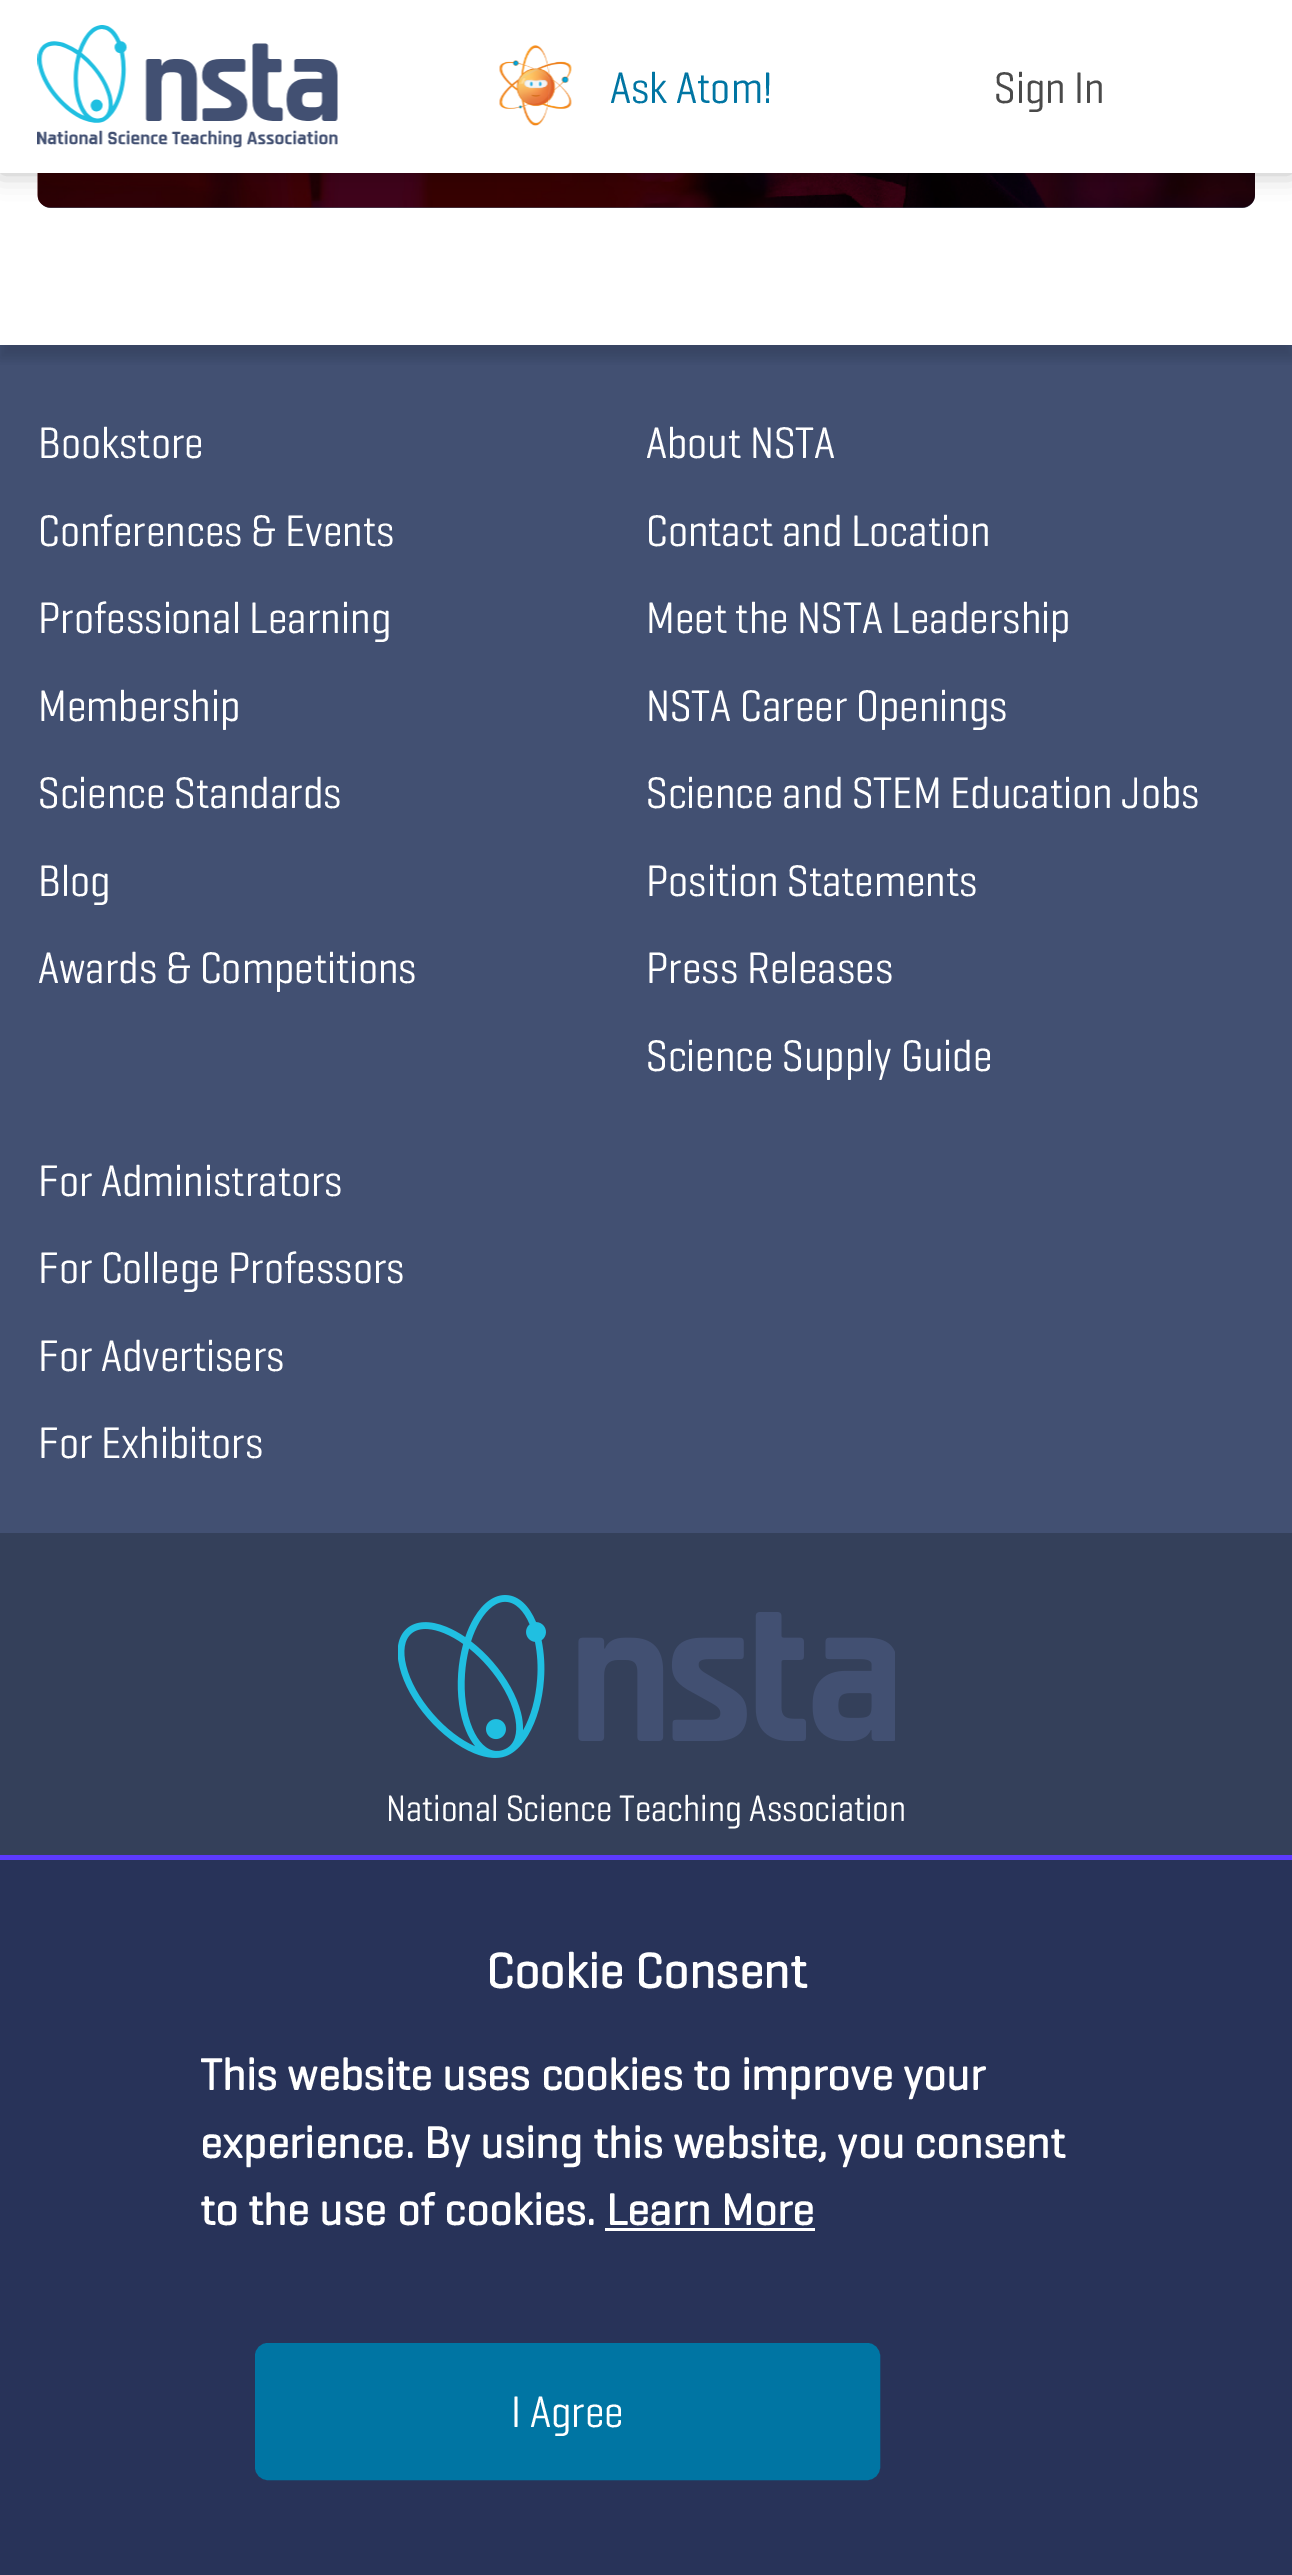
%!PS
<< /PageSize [1292 2575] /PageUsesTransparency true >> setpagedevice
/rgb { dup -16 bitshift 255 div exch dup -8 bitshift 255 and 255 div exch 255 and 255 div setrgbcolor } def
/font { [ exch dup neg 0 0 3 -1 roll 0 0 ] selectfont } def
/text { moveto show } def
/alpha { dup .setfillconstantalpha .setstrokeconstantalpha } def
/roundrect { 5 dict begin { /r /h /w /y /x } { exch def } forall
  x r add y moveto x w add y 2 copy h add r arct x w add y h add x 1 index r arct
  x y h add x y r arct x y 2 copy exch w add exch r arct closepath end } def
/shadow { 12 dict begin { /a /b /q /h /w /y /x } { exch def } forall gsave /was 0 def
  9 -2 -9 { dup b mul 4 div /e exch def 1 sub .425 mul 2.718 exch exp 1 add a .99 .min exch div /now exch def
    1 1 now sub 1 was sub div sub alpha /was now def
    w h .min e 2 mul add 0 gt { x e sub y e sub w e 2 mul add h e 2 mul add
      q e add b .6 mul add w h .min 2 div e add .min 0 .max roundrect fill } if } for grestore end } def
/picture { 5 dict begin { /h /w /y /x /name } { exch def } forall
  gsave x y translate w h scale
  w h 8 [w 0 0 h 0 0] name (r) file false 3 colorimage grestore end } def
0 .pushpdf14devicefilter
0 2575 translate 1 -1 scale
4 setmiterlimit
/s1 { /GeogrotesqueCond-Regular 45 font 16#0075A3 rgb } def
/s2 { /GeogrotesqueCond-Regular 45 font 16#4A4A4A rgb } def
/s3 { /GeogrotesqueCond-Regular 45 font 16#FFFFFF rgb } def
/s4 { /GeogrotesqueCond-Regular 37.5 font 16#FFFFFF rgb } def
/s5 { /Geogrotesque-Bold 50 font 16#FFFFFF rgb } def
/s6 { /Geogrotesque-Bold 45 font 16#FFFFFF rgb } def
16#FFFFFF rgb
0 0 1292 2575 rectfill
16#425072 rgb
0 345 1292 1188 rectfill
gsave
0 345 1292 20 rectclip
16#000000 rgb
0 -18 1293 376 0 6 0.15 shadow
grestore
16#717C95 rgb
38 -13 1217 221 13 roundrect fill
(pic1.raw) 37 173 1218 35 picture
0.3 alpha
16#000000 rgb
38 -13 moveto 1255 -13 lineto 1255 195 lineto 1255 202 1249 208 1242 208 curveto 51 208 lineto 44 208 38 202 38 195 curveto closepath fill
1 alpha
0 0 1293 173 0 12.5 0.25 shadow
16#FFFFFF rgb
0 0 1292 173 rectfill
(pic2.raw) 37 25 301 123 picture
(pic3.raw) 499 45 73 81 picture
s1
(Ask Atom!) 610 103 text
s2
(Sign In) 994 103 text
s3
(Bookstore) 38 458 text
(Conferences & Events) 38 546 text
(Professional Learning) 38 633 text
(Membership) 38 721 text
(Science Standards) 38 808 text
(Blog) 38 896 text
(Awards & Competitions) 38 983 text
(About NSTA) 646 458 text
(Contact and Location) 646 546 text
(Meet the NSTA Leadership) 646 633 text
(NSTA Career Openings) 646 721 text
(Science and STEM Education Jobs) 646 808 text
(Position Statements) 646 896 text
(Press Releases) 646 983 text
(Science Supply Guide) 646 1071 text
(For Administrators) 38 1196 text
(For College Professors) 38 1283 text
(For Advertisers) 38 1371 text
(For Exhibitors) 38 1458 text
16#34405A rgb
0 1533 1292 322 rectfill
(pic4.raw) 398 1595 497 163 picture
s4
(National Science Teaching Association) 386 1821 text
16#283359 rgb
0 1860 1292 715 rectfill
16#5C3AFE rgb
0 1855 1292 5 rectfill
s5
(Cookie Consent) 486 1988 text
s6
(This website uses cookies to improve your) 200 2090 text
(experience. By using this website, you consent) 200 2158 text
(to the use of cookies. Learn More) 200 2225 text
605 2228 210 3 rectfill
16#0075A3 rgb
256.5 2344.5 622 134 11.5 roundrect gsave fill grestore
3 setlinewidth
stroke
s3
(I Agree) 511 2427 text
.poppdf14devicefilter showpage
